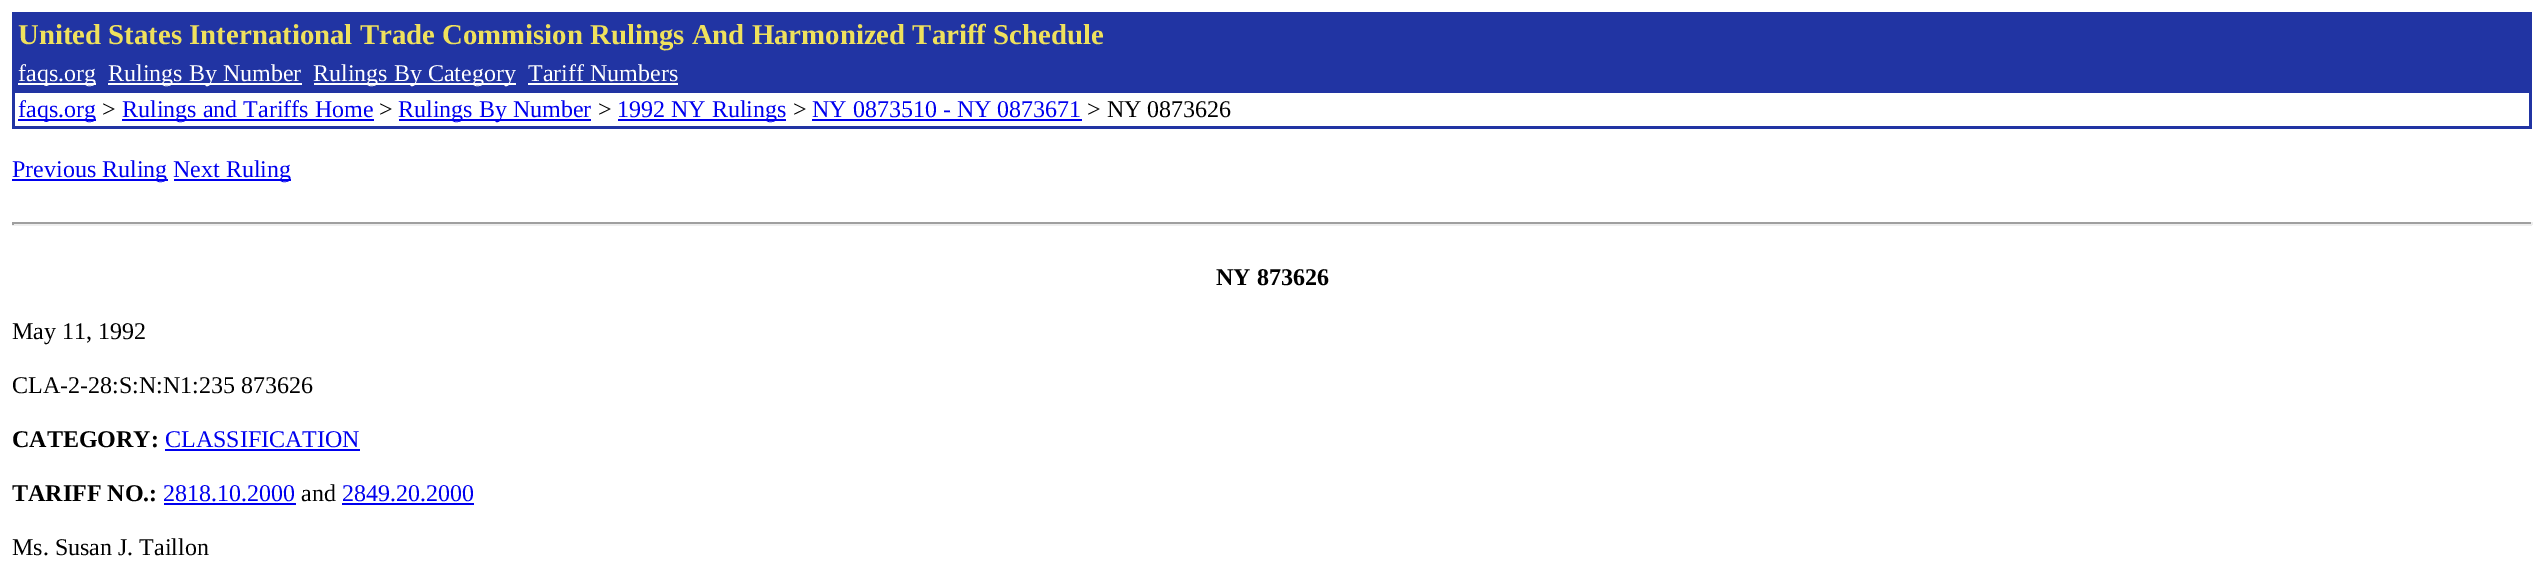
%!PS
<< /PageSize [2544 562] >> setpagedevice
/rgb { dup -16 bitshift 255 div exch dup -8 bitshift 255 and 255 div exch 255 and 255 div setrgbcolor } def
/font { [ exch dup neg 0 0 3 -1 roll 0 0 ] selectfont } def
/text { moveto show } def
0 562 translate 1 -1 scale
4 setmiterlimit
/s1 { /LiberationSerif-Bold 28.8 font 16#EFE15D rgb } def
/s2 { /LiberationSerif-Regular 24 font 16#FFFFFF rgb } def
/s3 { /LiberationSerif-Regular 24 font 16#0000EE rgb } def
/s4 { /LiberationSerif-Regular 24 font 16#000000 rgb } def
/s5 { /LiberationSerif-Bold 24 font 16#000000 rgb } def
16#FFFFFF rgb
0 0 2544 562 rectfill
16#2134A3 rgb
12 12 2520 117 rectfill
s1
(United States International Trade Commision Rulings And Harmonized Tariff Schedule) 18 44 text
16#FFFFFF rgb
18 83 78 2 rectfill
s2
(faqs.org) 18 81 text
108 83 194 2 rectfill
(Rulings By Number) 108 81 text
314 83 202 2 rectfill
(Rulings By Category) 313 81 text
(Tariff Numbers) 528 81 text
528 83 150 2 rectfill
15 93 2514 33 rectfill
16#0000EE rgb
18 119 78 2 rectfill
(faqs.org) 18 117 text
s4
(>) 102 117 text
16#0000EE rgb
122 119 252 2 rectfill
(Rulings and Tariffs Home) 122 117 text
s4
(>) 379 117 text
16#0000EE rgb
399 119 192 2 rectfill
(Rulings By Number) 398 117 text
s4
(>) 598 117 text
16#0000EE rgb
618 119 168 2 rectfill
(1992 NY Rulings) 617 117 text
s4
(>) 793 117 text
s3
(NY 0873510 - NY 0873671) 812 117 text
812 119 270 2 rectfill
s4
(> NY 0873626) 1087 117 text
16#0000EE rgb
12 179 156 2 rectfill
(Previous Ruling) 12 177 text
174 179 117 2 rectfill
(Next Ruling) 173 177 text
16#9F9F9F rgb
12 222 2520 2 rectfill
16#EEEEEE rgb
2531 222 2 3 rectfill
12 224 2520 2 rectfill
16#9F9F9F rgb
12 222 2 3 rectfill
s5
(NY 873626) 1216 285 text
s4
(May 11, 1992) 12 339 text
(CLA-2-28:S:N:N1:235 873626) 12 393 text
s5
(CATEGORY:) 12 447 text
s3
(CLASSIFICATION) 165 447 text
165 449 195 2 rectfill
s5
(TARIFF NO.:) 12 501 text
s3
(2818.10.2000) 163 501 text
164 503 132 2 rectfill
s4
(and) 301 501 text
s3
(2849.20.2000) 342 501 text
342 503 132 2 rectfill
s4
(Ms. Susan J. Taillon) 12 555 text
showpage
